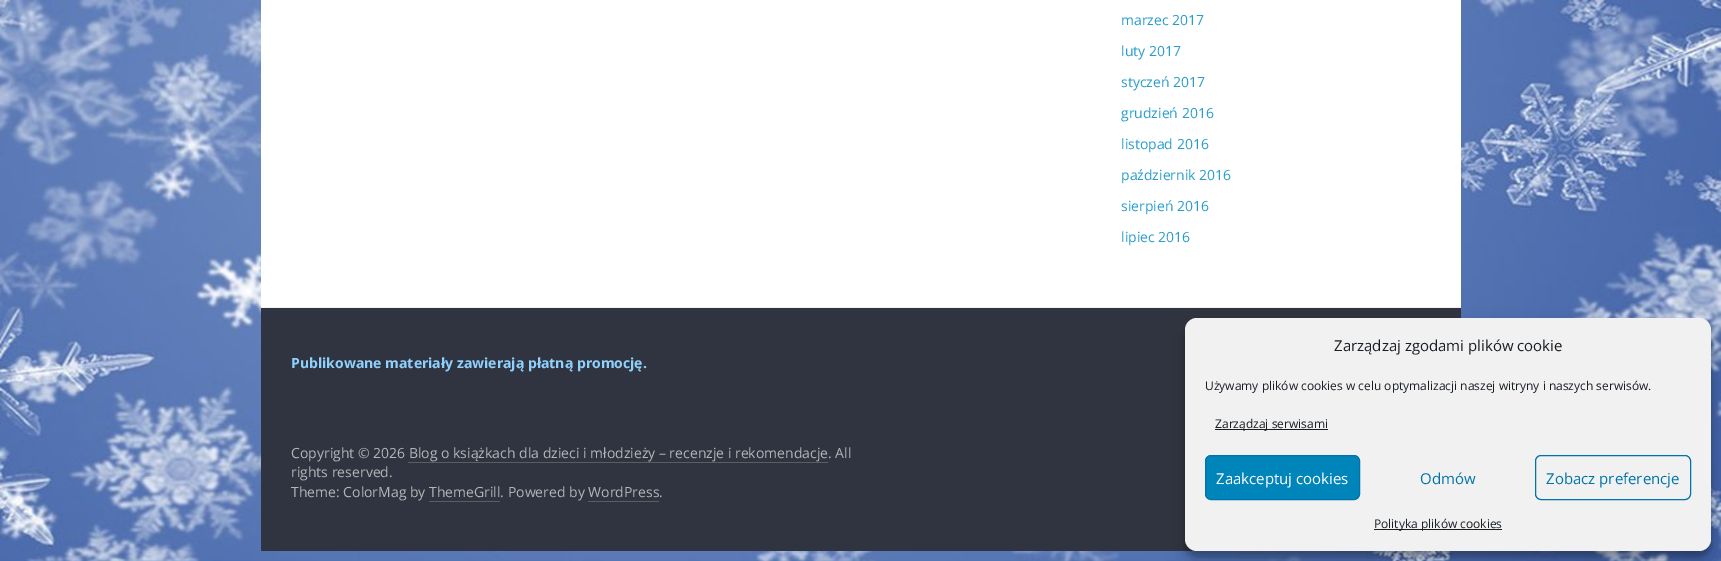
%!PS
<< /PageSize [1721 561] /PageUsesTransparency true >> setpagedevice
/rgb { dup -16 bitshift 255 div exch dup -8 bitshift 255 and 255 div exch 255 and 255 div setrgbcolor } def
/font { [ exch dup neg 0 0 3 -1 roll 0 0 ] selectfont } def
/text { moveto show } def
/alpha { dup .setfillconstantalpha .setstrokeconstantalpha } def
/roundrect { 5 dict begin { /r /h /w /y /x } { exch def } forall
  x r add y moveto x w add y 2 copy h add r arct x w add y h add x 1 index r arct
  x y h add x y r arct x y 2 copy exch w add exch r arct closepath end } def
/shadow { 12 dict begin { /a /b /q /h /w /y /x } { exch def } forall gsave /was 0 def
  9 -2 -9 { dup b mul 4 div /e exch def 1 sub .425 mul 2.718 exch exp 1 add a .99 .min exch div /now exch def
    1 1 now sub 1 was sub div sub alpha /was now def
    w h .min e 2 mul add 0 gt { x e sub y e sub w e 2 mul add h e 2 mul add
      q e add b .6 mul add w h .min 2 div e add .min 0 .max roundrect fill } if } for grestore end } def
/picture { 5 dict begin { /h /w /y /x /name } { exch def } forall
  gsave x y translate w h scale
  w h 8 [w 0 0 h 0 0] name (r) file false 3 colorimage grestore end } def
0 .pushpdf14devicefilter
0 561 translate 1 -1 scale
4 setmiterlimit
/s1 { /OpenSans-Regular 14 font 16#289DCC rgb } def
/s2 { /OpenSans-Bold 14 font 16#8ED1FC rgb } def
/s3 { /OpenSans-Regular 14 font 16#B1B6B6 rgb } def
/s4 { /OpenSans-Regular 15 font 16#191E23 rgb } def
/s5 { /OpenSans-Regular 12 font 16#191E23 rgb } def
/s6 { /OpenSans-Regular 15 font 16#FFFFFF rgb } def
/s7 { /OpenSans-Regular 15 font 16#0073AA rgb } def
16#FFFFFF rgb
0 0 1721 561 rectfill
(pic1.raw) 0 0 1721 561 picture
261 0 1200 307 rectfill
s1
(marzec 2017) 1121 25 text
(luty 2017) 1121 56 text
(styczeń 2017) 1121 87 text
(grudzień 2016) 1121 118 text
(listopad 2016) 1121 149 text
(październik 2016) 1121 180 text
(sierpień 2016) 1121 211 text
(lipiec 2016) 1121 242 text
16#303440 rgb
261 308 1200 115 rectfill
16#F2F2F2 rgb
261 307 1200 1 rectfill
s2
(Publikowane materiały zawierają płatną promocję.) 291 368 text
16#303440 rgb
261 423 936 128 rectfill
s3
(Copyright © 2026 Blog o książkach dla dzieci i młodzieży – recenzje i rekomendacje. All) 291 458 text
16#5A5D62 rgb
408 462 420 1 rectfill
s3
(rights reserved.) 291 477 text
(Theme: ColorMag by ThemeGrill. Powered by WordPress.) 291 497 text
16#5A5D62 rgb
429 501 71 1 rectfill
588 501 71 1 rectfill
16#000000 rgb
1185 324 526 233 12 3 0.23 shadow
1185 328 526 233 12 10 0.19 shadow
16#F1F1F1 rgb
1185 318 526 233 12 roundrect fill
s4
(Zarządzaj zgodami plików cookie) 1334 351 text
s5
(Używamy plików cookies w celu optymalizacji naszej witryny i naszych serwisów.) 1205 390 text
1215 429 113 1 rectfill
(Zarządzaj serwisami) 1215 428 text
16#0085BA rgb
1205.5 455.5 154 44 5.5 roundrect gsave fill grestore
16#0073AA rgb
stroke
s6
(Zaakceptuj cookies) 1216 484 text
s7
(Odmów) 1420 484 text
1535.5 455.5 155 44 5.5 roundrect stroke
(Zobacz preferencje) 1546 484 text
16#191E23 rgb
1374 529 128 1 rectfill
s5
(Polityka plików cookies) 1374 528 text
.poppdf14devicefilter showpage
